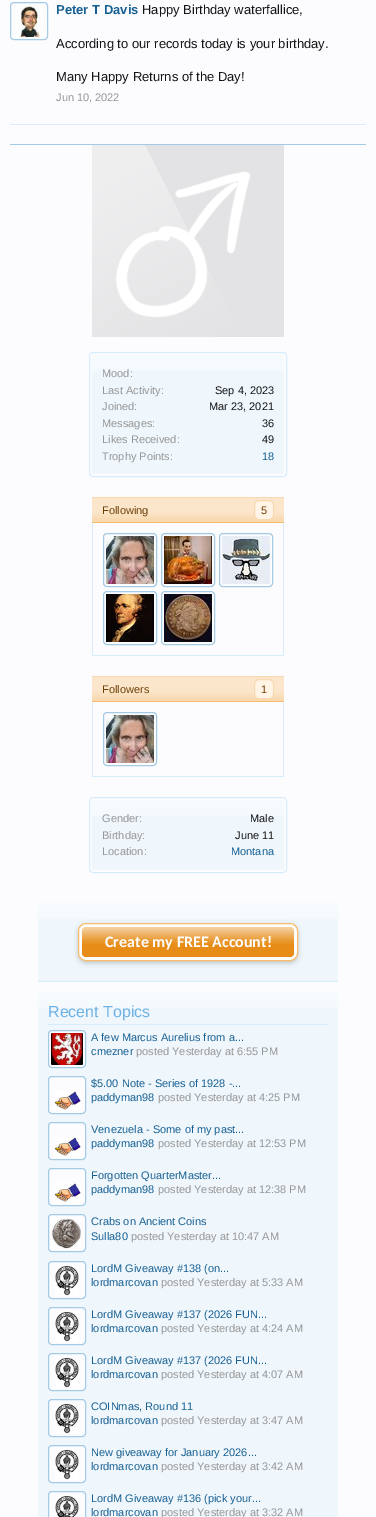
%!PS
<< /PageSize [376 1517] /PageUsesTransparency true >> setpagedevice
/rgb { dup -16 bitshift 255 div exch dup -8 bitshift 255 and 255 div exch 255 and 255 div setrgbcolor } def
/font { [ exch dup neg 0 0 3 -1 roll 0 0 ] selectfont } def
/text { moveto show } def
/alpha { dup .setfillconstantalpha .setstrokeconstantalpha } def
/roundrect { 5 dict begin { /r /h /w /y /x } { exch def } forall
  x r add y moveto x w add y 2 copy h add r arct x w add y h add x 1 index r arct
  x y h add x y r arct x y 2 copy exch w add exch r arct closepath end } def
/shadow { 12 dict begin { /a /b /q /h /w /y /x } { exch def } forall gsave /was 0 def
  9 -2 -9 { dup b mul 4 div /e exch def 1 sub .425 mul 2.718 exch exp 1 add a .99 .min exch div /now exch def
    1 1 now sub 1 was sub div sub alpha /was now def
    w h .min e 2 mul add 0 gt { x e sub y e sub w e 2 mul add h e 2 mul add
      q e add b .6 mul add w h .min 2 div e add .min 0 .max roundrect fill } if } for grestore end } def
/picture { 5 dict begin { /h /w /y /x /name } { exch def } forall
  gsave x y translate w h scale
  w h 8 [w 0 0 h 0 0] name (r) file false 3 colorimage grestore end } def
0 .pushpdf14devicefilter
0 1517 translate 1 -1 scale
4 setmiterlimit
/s1 { /LiberationSans-Bold 13 font 16#176093 rgb } def
/s2 { /LiberationSans-Regular 13 font 16#141414 rgb } def
/s3 { /LiberationSans-Regular 11 font 16#969696 rgb } def
/s4 { /LiberationSans-Regular 11 font 16#141414 rgb } def
/s5 { /LiberationSans-Regular 11 font 16#176093 rgb } def
/s6 { /LiberationSans-Regular 11 font 16#6D3F03 rgb } def
/s7 { /Carlito-Bold 16 font 16#FFFFFF rgb } def
/s8 { /LiberationSans-Regular 16 font 16#6CB2E4 rgb } def
16#FCFCFF rgb
0 0 376 1517 rectfill
16#A5CAE4 rgb
10 144 356 1 rectfill
16#D7EDFC rgb
10 124 356 1 rectfill
16#A5CAE4 rgb
10.5 2.5 37 37 3.5 roundrect stroke
(pic1.raw) 16 5 27 32 picture
s1
(Peter T Davis) 56 14 text
s2
(Happy Birthday waterfallice,) 142 14 text
(According to our records today is your birthday.) 56 48 text
(Many Happy Returns of the Day!) 56 81 text
s3
(Jun 10, 2022) 56 101 text
(pic2.raw) 92 145 192 192 picture
16#D7EDFC rgb
89.5 352.5 197 124 3.5 roundrect stroke
16#F0F7FC rgb
92 355 192 119 rectfill
(pic3.raw) 92 355 192 16 picture
s3
(Mood:) 102 377 text
(Last Activity:) 102 394 text
s4
(Sep 4, 2023) 215 394 text
s3
(Joined:) 102 410 text
s4
(Mar 23, 2021) 209 410 text
s3
(Messages:) 102 427 text
s4
(36) 262 427 text
s3
(Likes Received:) 102 443 text
s4
(49) 262 443 text
s3
(Trophy Points:) 102 460 text
s5
(18) 262 460 text
16#F9D9B0 rgb
92 497 192 25 rectfill
(pic4.raw) 92 498 192 21 picture
16#F9BC6D rgb
92 522 192 1 rectfill
s6
(Following) 102 514 text
16#FFF4E5 rgb
254.5 500.5 19 19 4.5 roundrect gsave fill grestore
16#F9D9B0 rgb
stroke
s6
(5) 261 514 text
16#D7EDFC rgb
283 523 1 133 rectfill
92 655 192 1 rectfill
92 523 1 133 rectfill
(pic5.raw) 106 536 48 48 picture
16#A5CAE4 rgb
103.5 533.5 53 53 3.5 roundrect stroke
(pic6.raw) 164 536 48 48 picture
161.5 533.5 53 53 3.5 roundrect stroke
(pic7.raw) 222 536 48 48 picture
219.5 533.5 53 53 3.5 roundrect stroke
(pic8.raw) 106 594 48 48 picture
103.5 591.5 53 53 3.5 roundrect stroke
(pic9.raw) 164 594 48 48 picture
161.5 591.5 53 53 3.5 roundrect stroke
16#F9D9B0 rgb
92 676 192 25 rectfill
(pic4.raw) 92 677 192 21 picture
16#F9BC6D rgb
92 701 192 1 rectfill
s6
(Followers) 102 693 text
16#FFF4E5 rgb
254.5 679.5 19 19 4.5 roundrect gsave fill grestore
16#F9D9B0 rgb
stroke
s6
(1) 261 693 text
16#D7EDFC rgb
283 702 1 75 rectfill
92 776 192 1 rectfill
92 702 1 75 rectfill
(pic5.raw) 106 715 48 48 picture
16#A5CAE4 rgb
103.5 712.5 53 53 3.5 roundrect stroke
16#D7EDFC rgb
89.5 797.5 197 75 3.5 roundrect stroke
16#F0F7FC rgb
92 800 192 70 rectfill
(pic3.raw) 92 800 192 16 picture
s3
(Gender:) 102 822 text
s4
(Male) 250 822 text
s3
(Birthday:) 102 839 text
s4
(June 11) 235 839 text
s3
(Location:) 102 855 text
s5
(Montana) 231 855 text
16#F0F7FC rgb
38 903 300 78 rectfill
(pic10.raw) 38 903 300 16 picture
16#D7EDFC rgb
38 981 300 1 rectfill
16#000000 rgb
78 925 220 38 8 2.5 0.2 shadow
16#FFFFFF rgb
78.5 923.5 219 37 7.5 roundrect gsave fill grestore
16#F9BC6D rgb
stroke
16#E68C17 rgb
82 927 212 30 4 roundrect fill
(pic11.raw) 82 927 212 17 picture
s7
(Create my FREE Account!) 105 947 text
16#F0F7FC rgb
38 992 300 525 rectfill
(pic10.raw) 38 992 300 16 picture
16#D7EDFC rgb
48 1024 280 1 rectfill
s8
(Recent Topics) 48 1017 text
16#FCFCFF rgb
48.5 1030.5 37 37 3.5 roundrect gsave fill grestore
16#A5CAE4 rgb
stroke
(pic12.raw) 51 1033 32 32 picture
s5
(A few Marcus Aurelius from a...) 91 1041 text
(cmezner) 91 1055 text
s3
(posted Yesterday at 6:55 PM) 136 1055 text
16#FCFCFF rgb
48.5 1076.5 37 37 3.5 roundrect gsave fill grestore
16#A5CAE4 rgb
stroke
(pic13.raw) 54 1091 27 20 picture
s5
($5.00 Note - Series of 1928 -...) 91 1087 text
(paddyman98) 91 1101 text
s3
(posted Yesterday at 4:25 PM) 158 1101 text
16#FCFCFF rgb
48.5 1122.5 37 37 3.5 roundrect gsave fill grestore
16#A5CAE4 rgb
stroke
(pic13.raw) 54 1137 27 20 picture
s5
(Venezuela - Some of my past...) 91 1133 text
(paddyman98) 91 1147 text
s3
(posted Yesterday at 12:53 PM) 158 1147 text
16#FCFCFF rgb
48.5 1168.5 37 37 3.5 roundrect gsave fill grestore
16#A5CAE4 rgb
stroke
(pic13.raw) 54 1183 27 20 picture
s5
(Forgotten QuarterMaster...) 91 1179 text
(paddyman98) 91 1193 text
s3
(posted Yesterday at 12:38 PM) 158 1193 text
16#FCFCFF rgb
48.5 1214.5 37 37 3.5 roundrect gsave fill grestore
16#A5CAE4 rgb
stroke
(pic14.raw) 51 1217 30 32 picture
s5
(Crabs on Ancient Coins) 91 1225 text
(Sulla80) 91 1240 text
s3
(posted Yesterday at 10:47 AM) 131 1240 text
16#FCFCFF rgb
48.5 1261.5 37 37 3.5 roundrect gsave fill grestore
16#A5CAE4 rgb
stroke
(pic15.raw) 55 1265 24 31 picture
s5
(LordM Giveaway #138 \(on...) 91 1272 text
(lordmarcovan) 91 1286 text
s3
(posted Yesterday at 5:33 AM) 161 1286 text
16#FCFCFF rgb
48.5 1307.5 37 37 3.5 roundrect gsave fill grestore
16#A5CAE4 rgb
stroke
(pic15.raw) 55 1311 24 31 picture
s5
(LordM Giveaway #137 \(2026 FUN...) 91 1318 text
(lordmarcovan) 91 1332 text
s3
(posted Yesterday at 4:24 AM) 161 1332 text
16#FCFCFF rgb
48.5 1353.5 37 37 3.5 roundrect gsave fill grestore
16#A5CAE4 rgb
stroke
(pic15.raw) 55 1357 24 31 picture
s5
(LordM Giveaway #137 \(2026 FUN...) 91 1364 text
(lordmarcovan) 91 1378 text
s3
(posted Yesterday at 4:07 AM) 161 1378 text
16#FCFCFF rgb
48.5 1399.5 37 37 3.5 roundrect gsave fill grestore
16#A5CAE4 rgb
stroke
(pic15.raw) 55 1403 24 31 picture
s5
(COINmas, Round 11) 91 1410 text
(lordmarcovan) 91 1424 text
s3
(posted Yesterday at 3:47 AM) 161 1424 text
16#FCFCFF rgb
48.5 1445.5 37 37 3.5 roundrect gsave fill grestore
16#A5CAE4 rgb
stroke
(pic15.raw) 55 1449 24 31 picture
s5
(New giveaway for January 2026...) 91 1456 text
(lordmarcovan) 91 1470 text
s3
(posted Yesterday at 3:42 AM) 161 1470 text
16#FCFCFF rgb
48.5 1491.5 37 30 3.5 roundrect gsave fill grestore
16#A5CAE4 rgb
stroke
(pic16.raw) 55 1495 24 22 picture
s5
(LordM Giveaway #136 \(pick your...) 91 1502 text
(lordmarcovan) 91 1516 text
s3
(posted Yesterday at 3:32 AM) 161 1516 text
.poppdf14devicefilter showpage
